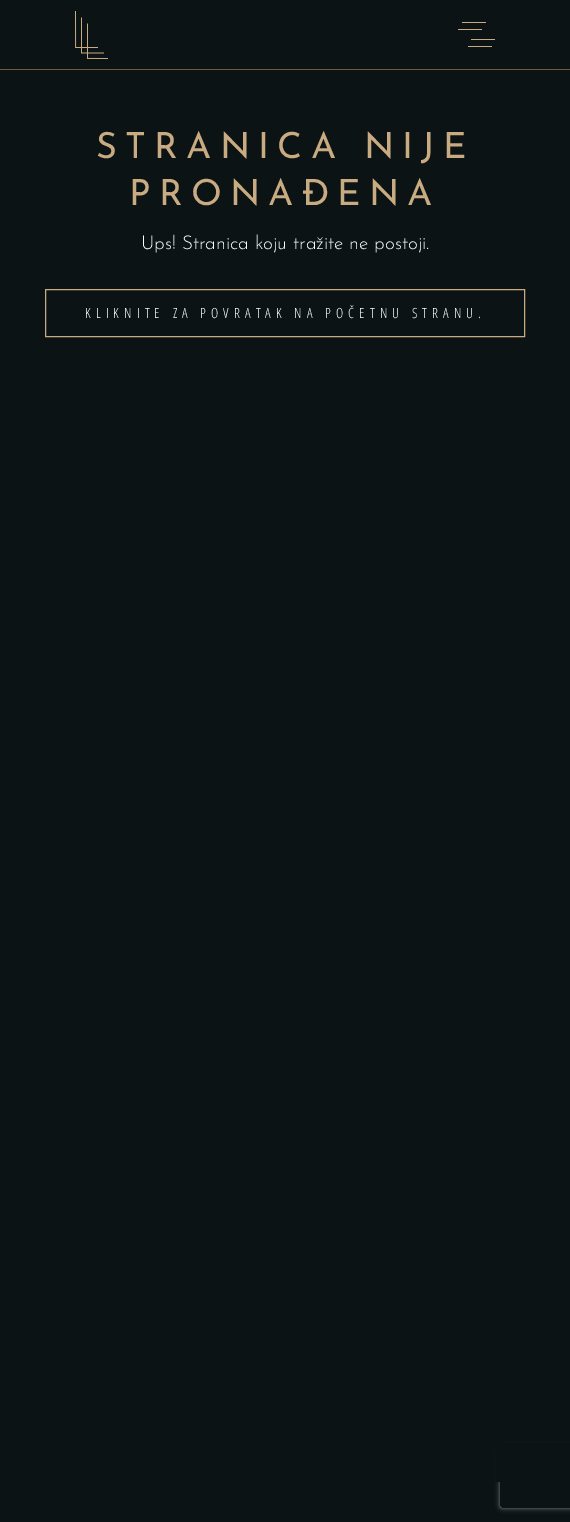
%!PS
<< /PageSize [570 1522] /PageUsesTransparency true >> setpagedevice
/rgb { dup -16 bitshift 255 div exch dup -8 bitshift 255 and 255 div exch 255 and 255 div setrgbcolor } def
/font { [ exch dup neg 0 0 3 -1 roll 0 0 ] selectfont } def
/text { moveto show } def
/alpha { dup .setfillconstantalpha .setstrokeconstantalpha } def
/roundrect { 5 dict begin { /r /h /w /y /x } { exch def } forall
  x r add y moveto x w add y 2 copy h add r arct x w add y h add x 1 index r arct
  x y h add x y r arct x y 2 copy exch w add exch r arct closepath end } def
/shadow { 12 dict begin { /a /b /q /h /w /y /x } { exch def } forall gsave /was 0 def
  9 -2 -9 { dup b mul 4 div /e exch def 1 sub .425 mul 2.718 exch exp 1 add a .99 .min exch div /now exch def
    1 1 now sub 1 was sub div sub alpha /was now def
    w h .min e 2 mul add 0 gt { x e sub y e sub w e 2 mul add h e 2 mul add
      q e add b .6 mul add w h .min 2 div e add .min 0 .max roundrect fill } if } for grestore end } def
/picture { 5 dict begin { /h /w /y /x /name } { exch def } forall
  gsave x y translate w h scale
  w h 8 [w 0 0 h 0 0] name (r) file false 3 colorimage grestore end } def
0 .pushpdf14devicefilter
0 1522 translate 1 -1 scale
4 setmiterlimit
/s1 { /JosefinSans-Light 19 font 16#FFFFFF rgb } def
16#0B1315 rgb
0 0 570 1522 rectfill
16#715B3E rgb
0 69 570 1 rectfill
(pic1.raw) 75 11 33 48 picture
16#C9AB81 rgb
462 22 24 1 rectfill
458 29 24 1 rectfill
471 39 24 1 rectfill
468 46 24 1 rectfill
gsave
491 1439 moveto 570 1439 lineto 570 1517 lineto 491 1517 lineto closepath 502 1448 moveto 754 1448 lineto 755 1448 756 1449 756 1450 curveto 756 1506 lineto 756 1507 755 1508 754 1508 curveto 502 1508 lineto 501 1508 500 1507 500 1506 curveto 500 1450 lineto 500 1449 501 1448 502 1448 curveto closepath eoclip newpath
16#808080 rgb
500 1448 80 60 2 2.5 1 shadow
grestore
16#0B1315 rgb
495 1443 75 39 rectfill
/JosefinSans-Regular 36 font
16#C9AB81 rgb
96 158 moveto 8.25 0 (STRANICA NIJE) ashow
129 205 moveto 8.25 0 (PRONAĐENA) ashow
s1
(Ups! Stranica koju tražite ne postoji.) 141 249 text
16#C9AB81 rgb
45.5 289.5 479 47 rectstroke
/OpenSansCondensed-Light 14 font
16#FFFFFF rgb
85 318 moveto 5.05 0 (KLIKNITE ZA POVRATAK NA POČETNU STRANU.) ashow
.poppdf14devicefilter showpage
